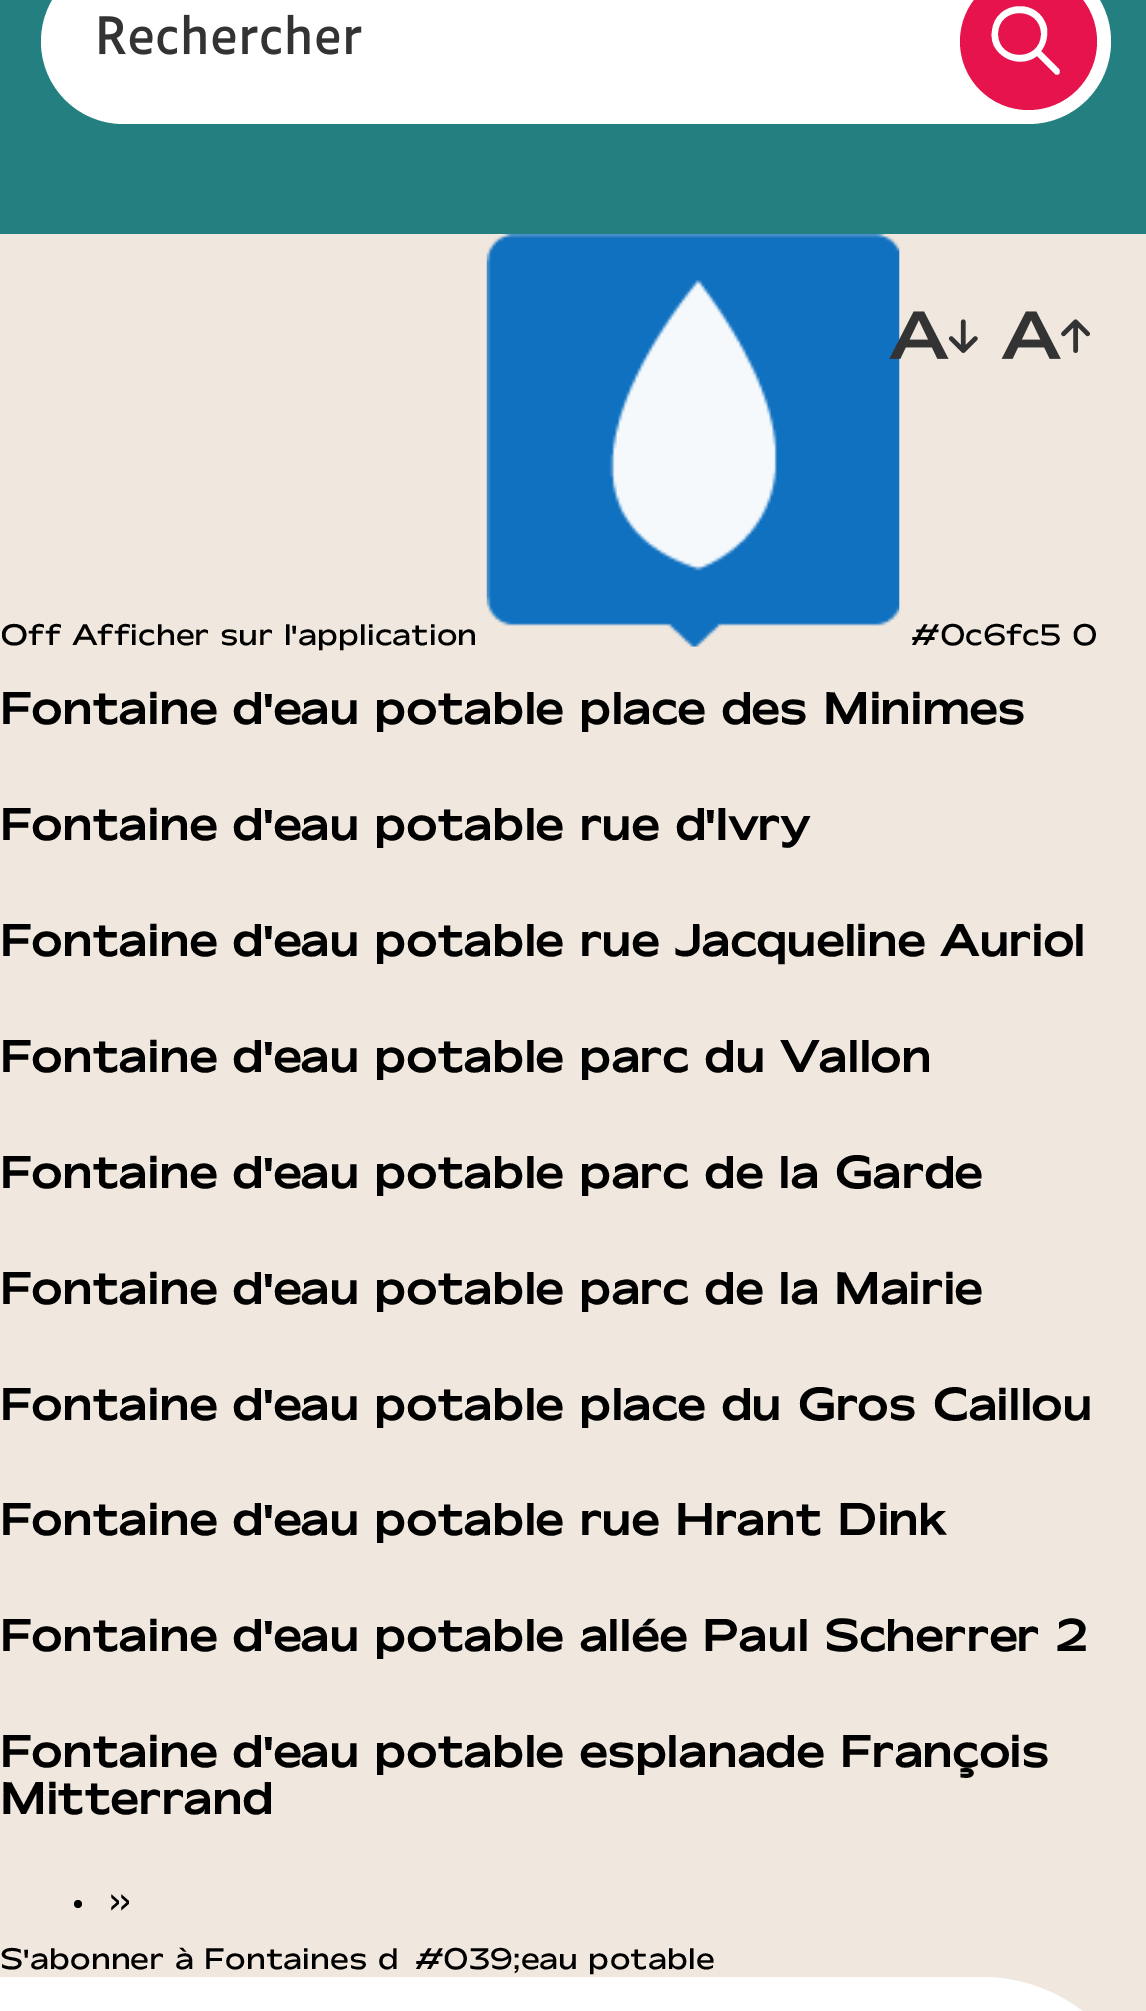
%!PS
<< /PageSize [1146 2011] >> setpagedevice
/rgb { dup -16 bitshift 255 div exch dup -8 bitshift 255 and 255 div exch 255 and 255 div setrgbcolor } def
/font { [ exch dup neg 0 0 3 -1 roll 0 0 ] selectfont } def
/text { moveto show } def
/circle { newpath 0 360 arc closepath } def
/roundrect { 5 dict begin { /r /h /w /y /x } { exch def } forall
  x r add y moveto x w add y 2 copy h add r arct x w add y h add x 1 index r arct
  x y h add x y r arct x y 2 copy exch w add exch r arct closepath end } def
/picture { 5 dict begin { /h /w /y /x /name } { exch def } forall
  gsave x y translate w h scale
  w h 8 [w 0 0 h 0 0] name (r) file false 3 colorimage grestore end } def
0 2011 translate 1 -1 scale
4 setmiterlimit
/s1 { /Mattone-Regular 27.5 font 16#000000 rgb } def
/s2 { /Mattone-Bold 41.25 font 16#000000 rgb } def
16#F0E8DE rgb
0 0 1146 2011 rectfill
16#247F80 rgb
0 0 1146 234 rectfill
16#FFFFFF rgb
41 -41 1070 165 82.5 roundrect fill
(pic1.raw) 99 14 263 41 picture
16#E6134D rgb
1028.5 41.5 68.5 circle fill
16#FFFFFF rgb
1041 34 moveto 1041 6 998 6 998 34 curveto 998 62 1041 62 1041 34 curveto closepath 1037 56 moveto 1024 66 1005 62 996 49 curveto 992 44 991 37 992 31 curveto 995 0 1040 -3 1047 28 curveto 1048 36 1046 45 1041 51 curveto 1059 69 lineto 1060 71 1060 72 1059 74 curveto 1058 75 1056 75 1055 74 curveto closepath fill
(pic4.raw) 486 234 414 413 picture
(pic2.raw) 889 311 89 48 picture
(pic3.raw) 1001 311 89 48 picture
s1
(Off Afficher sur l'application) 0 645 text
(#0c6fc5 0) 911 645 text
s2
(Fontaine d'eau potable place des Minimes) 0 724 text
(Fontaine d'eau potable rue d'Ivry) 0 840 text
(Fontaine d'eau potable rue Jacqueline Auriol) 0 956 text
(Fontaine d'eau potable parc du Vallon) 0 1072 text
(Fontaine d'eau potable parc de la Garde) 0 1188 text
(Fontaine d'eau potable parc de la Mairie) 0 1304 text
(Fontaine d'eau potable place du Gros Caillou) 0 1420 text
(Fontaine d'eau potable rue Hrant Dink) 0 1535 text
(Fontaine d'eau potable allée Paul Scherrer 2) 0 1651 text
(Fontaine d'eau potable esplanade François) 0 1767 text
(Mitterrand) 0 1814 text
78 1904 4 circle fill
s1
(››) 110 1910 text
(S'abonner à Fontaines d&#039;eau potable) 0 1969 text
16#FFFFFF rgb
0 1977 moveto 982 1977 lineto 1073 1977 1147 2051 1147 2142 curveto 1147 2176 lineto 0 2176 lineto closepath fill
showpage
